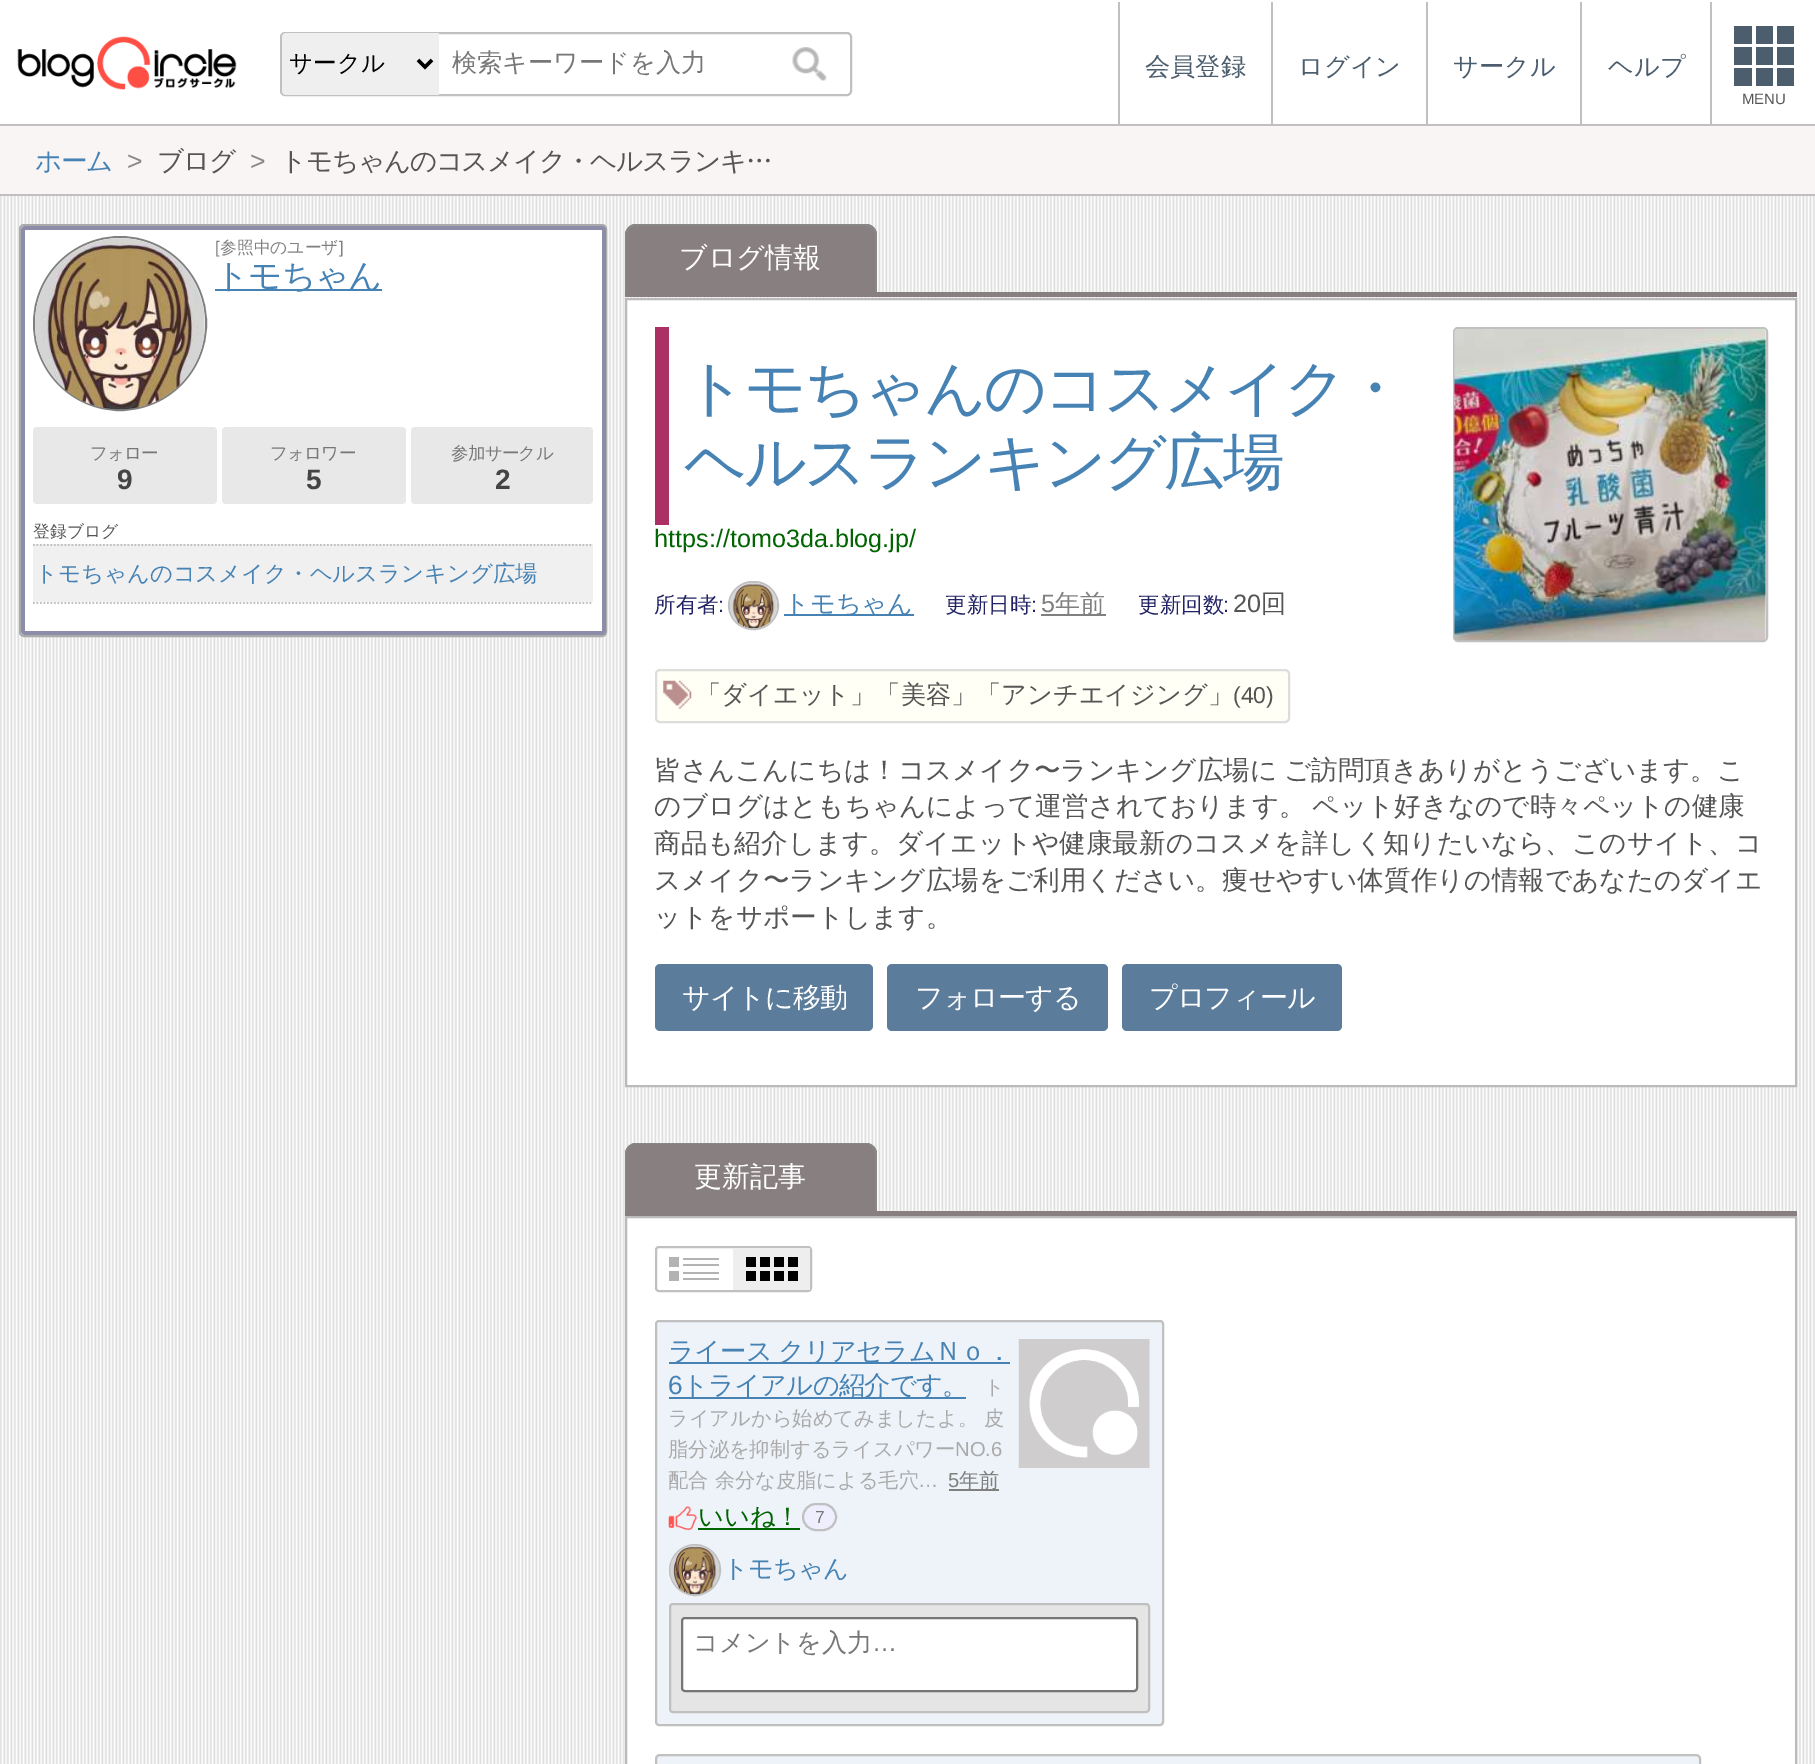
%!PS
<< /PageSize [1815 1764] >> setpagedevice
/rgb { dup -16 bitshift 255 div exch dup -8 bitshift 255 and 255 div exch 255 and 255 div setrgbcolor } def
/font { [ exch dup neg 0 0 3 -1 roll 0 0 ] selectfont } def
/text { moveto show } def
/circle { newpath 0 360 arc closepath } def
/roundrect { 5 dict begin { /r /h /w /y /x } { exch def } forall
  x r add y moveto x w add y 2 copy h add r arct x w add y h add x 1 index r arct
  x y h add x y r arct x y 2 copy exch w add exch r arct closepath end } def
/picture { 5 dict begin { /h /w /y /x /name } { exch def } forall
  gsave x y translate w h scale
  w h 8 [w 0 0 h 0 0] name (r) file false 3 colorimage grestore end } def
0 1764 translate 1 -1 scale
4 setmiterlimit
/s1 { /WenQuanYiZenHei-Medium 23.5 font 16#000000 rgb } def
/s2 { /WenQuanYiZenHei-Medium 25.2 font 16#777777 rgb } def
/s3 { /WenQuanYiZenHei-Medium 25.2 font 16#4C5E6D rgb } def
/s4 { /LiberationSans-Regular 15 font 16#555555 rgb } def
/s5 { /LiberationSans-Regular 16.75 font 16#808080 rgb } def
/s6 { /WenQuanYiZenHei-Medium 16.75 font 16#808080 rgb } def
/s7 { /WenQuanYiZenHei-Medium 16.75 font 16#555555 rgb } def
/s8 { /WenQuanYiZenHei-Medium 22.4 font 16#4682B4 rgb } def
/s9 { /WenQuanYiZenHei-Medium 28 font 16#FFFFFF rgb } def
/s10 { /LiberationSans-Regular 25.2 font 16#006400 rgb } def
/s11 { /WenQuanYiZenHei-Medium 21.5 font 16#222266 rgb } def
/s12 { /LiberationSans-Regular 21.5 font 16#222266 rgb } def
/s13 { /WenQuanYiZenHei-Medium 25.2 font 16#4682B4 rgb } def
/s14 { /LiberationSans-Regular 25.2 font 16#808080 rgb } def
/s15 { /WenQuanYiZenHei-Medium 25.2 font 16#808080 rgb } def
/s16 { /LiberationSans-Regular 25.2 font 16#555555 rgb } def
/s17 { /WenQuanYiZenHei-Medium 25.2 font 16#555555 rgb } def
/s18 { /LiberationSans-Regular 23 font 16#555555 rgb } def
/s19 { /WenQuanYiZenHei-Medium 26.6 font 16#555555 rgb } def
/s20 { /WenQuanYiZenHei-Medium 20.25 font 16#AAAAAA rgb } def
/s21 { /LiberationSans-Regular 20.25 font 16#AAAAAA rgb } def
/s22 { /LiberationSans-Regular 20.25 font 16#808080 rgb } def
/s23 { /WenQuanYiZenHei-Medium 20.25 font 16#808080 rgb } def
/s24 { /WenQuanYiZenHei-Medium 25.2 font 16#006400 rgb } def
/s25 { /LiberationSans-Regular 17.5 font 16#777777 rgb } def
/s26 { /LiberationSans-Regular 25.2 font 16#777777 rgb } def
16#FFFFFF rgb
0 0 1815 1764 rectfill
(pic1.raw) 0 196 1815 1568 picture
16#C0C0C0 rgb
0 124 1815 2 rectfill
(pic2.raw) 17 36 220 54 picture
2 setlinewidth
281 33 570 62 4 roundrect stroke
16#EFEFEF rgb
286 33 moveto 439 33 lineto 439 95 lineto 286 95 lineto 284 95 282 93 282 91 curveto 282 37 lineto 282 35 284 33 286 33 curveto closepath fill
16#000000 rgb
3.5 setlinewidth
418 60 moveto 425 67 lineto 432 60 lineto stroke
s1
(サークル) 289 71 text
s2
(検索キーワードを入力) 452 71 text
(pic3.raw) 792 47 35 34 picture
16#C0C0C0 rgb
1118 2 2 122 rectfill
s3
(会員登録) 1145 75 text
16#C0C0C0 rgb
1271 2 2 122 rectfill
s3
(ログイン) 1298 75 text
16#C0C0C0 rgb
1426 2 2 122 rectfill
s3
(サークル) 1453 75 text
16#C0C0C0 rgb
1580 2 2 122 rectfill
s3
(ヘルプ) 1608 75 text
16#C0C0C0 rgb
1710 2 2 122 rectfill
16#4C5E6D rgb
1734 26 60 18 rectfill
16#FFFFFF rgb
1773 26 4 18 rectfill
1752 26 4 18 rectfill
16#4C5E6D rgb
1734 47 60 18 rectfill
16#FFFFFF rgb
1773 47 4 18 rectfill
1752 47 4 18 rectfill
16#4C5E6D rgb
1734 68 60 18 rectfill
16#FFFFFF rgb
1773 68 4 18 rectfill
1752 68 4 18 rectfill
s4
(MENU) 1742 104 text
16#FAF5F5 rgb
0 126 1815 68 rectfill
16#C0C0C0 rgb
0 194 1815 2 rectfill
/WenQuanYiZenHei-Medium 26.6 font
16#4682B4 rgb
35 170 moveto -1.3 0 (ホーム) ashow
/LiberationSans-Regular 26.6 font
16#888888 rgb
127 170 moveto -1.3 0 (>) ashow
/WenQuanYiZenHei-Medium 26.6 font
16#555555 rgb
157 170 moveto -1.3 0 (ブログ) ashow
/LiberationSans-Regular 26.6 font
16#888888 rgb
250 170 moveto -1.3 0 (>) ashow
/WenQuanYiZenHei-Medium 26.6 font
16#555555 rgb
280 170 moveto -1.3 0 (トモちゃんのコスメイク・ヘルスランキ…) ashow
16#FFFFFF rgb
20 225 586 411 4 roundrect gsave fill grestore
16#AAAAAA rgb
2 setlinewidth
stroke
16#8D8DAA rgb
25 226 moveto 23 226 21 228 21 230 curveto 21 631 lineto 21 633 23 635 25 635 curveto 602 635 lineto 604 635 606 633 606 631 curveto 606 230 lineto 606 228 604 226 602 226 curveto closepath 25 230 moveto 25 631 lineto 602 631 lineto 602 230 lineto closepath eofill
16#808080 rgb
34 237 172 173 86 roundrect stroke
(pic4.raw) 35 238 170 172 picture
s5
([) 215 253 text
s6
(参照中のユーザ) 220 253 text
s5
(]) 339 253 text
16#4682B4 rgb
215 289 167 2 rectfill
/WenQuanYiZenHei-Medium 33.5 font
215 287 moveto -1 0 (トモちゃん) ashow
16#E8E8E8 rgb
33 427 184 77 4 roundrect fill
/WenQuanYiZenHei-Medium 17.5 font
16#777777 rgb
90 459 moveto -0.75 0 (フォロー) ashow
/LiberationSans-Bold 28 font
16#444444 rgb
117 489 moveto -0.75 0 (9) ashow
16#E8E8E8 rgb
222 427 184 77 4 roundrect fill
/WenQuanYiZenHei-Medium 17.5 font
16#777777 rgb
270 459 moveto -0.75 0 (フォロワー) ashow
/LiberationSans-Bold 28 font
16#444444 rgb
306 489 moveto -0.75 0 (5) ashow
16#E8E8E8 rgb
411 427 182 77 4 roundrect fill
/WenQuanYiZenHei-Medium 17.5 font
16#777777 rgb
451 459 moveto -0.75 0 (参加サークル) ashow
/LiberationSans-Bold 28 font
16#444444 rgb
495 489 moveto -0.75 0 (2) ashow
s7
(登録ブログ) 33 537 text
16#C0C0C0 rgb
1.8 setlinewidth
[1.75 1.75] 0 setdash
33 603 moveto 593 603 lineto stroke
16#F0F0F0 rgb
33 544 560 58 rectfill
16#C0C0C0 rgb
33 545 moveto 593 545 lineto stroke
s8
(トモちゃんのコスメイク・ヘルスランキング広場) 35 581 text
16#888080 rgb
625 292 1172 5 rectfill
636 224 moveto 866 224 lineto 872 224 877 229 877 235 curveto 877 292 lineto 625 292 lineto 625 235 lineto 625 229 630 224 636 224 curveto closepath fill
16#888888 rgb
636 224 moveto 866 224 lineto 872 224 877 229 877 235 curveto 877 292 lineto 625 292 lineto 625 235 lineto 625 229 630 224 636 224 curveto closepath 636 226 moveto 866 226 lineto 871 226 875 230 875 235 curveto 875 292 lineto 626 292 lineto 626 235 lineto 626 230 631 226 636 226 curveto closepath eofill
s9
(ブログ情報) 679 267 text
627 300 1167 785 rectfill
16#BBBBBB rgb
2 setlinewidth
[] 0 setdash
626 299 1170 787 rectstroke
16#AB3063 rgb
655 327 14 198 rectfill
/WenQuanYiZenHei-Medium 61.6 font
16#4682B4 rgb
684 409 moveto -3 0 (トモちゃんのコスメイク・) ashow
684 483 moveto -3 0 (ヘルスランキング広場) ashow
16#C0C0C0 rgb
1454 328 313 313 4 roundrect stroke
(pic5.raw) 1454 329 312 312 picture
s10
(https://tomo3da.blog.jp/) 654 547 text
s11
(所有者) 654 612 text
s12
(:) 718 612 text
16#C0C0C0 rgb
729 582 49 47 23.5 roundrect stroke
(pic6.raw) 730 583 47 46 picture
16#4682B4 rgb
784 614 130 2 rectfill
s13
(トモちゃん) 784 612 text
s11
(更新日時) 945 612 text
s12
(:) 1031 612 text
s14
(5) 1041 612 text
1041 614 65 2 rectfill
s15
(年前) 1055 612 text
s11
(更新回数) 1138 612 text
s12
(:) 1223 612 text
s16
(20) 1233 612 text
s17
(回) 1261 612 text
16#FFFFF5 rgb
655 669 635 54 5 roundrect fill
(pic7.raw) 663 680 29 29 picture
16#DDDDDD rgb
656 670 633 52 4 roundrect stroke
s17
(「ダイエット」「美容」「アンチエイジング」) 696 703 text
s18
(\(40\)) 1233 703 text
/WenQuanYiZenHei-Medium 26.6 font
654 779 moveto -1 0 32 (皆さんこんにちは！コスメイク〜ランキング広場に ご訪問頂きありがとうございます。こ) widthshow
654 815 moveto -1 0 32 (のブログはともちゃんによって運営されております。 ペット好きなので時々ペットの健康) widthshow
(商品も紹介します。ダイエットや健康最新のコスメを詳しく知りたいなら、このサイト、コ) 654 852 text
(スメイク〜ランキング広場をご利用ください。痩せやすい体質作りの情報であなたのダイエ) 654 889 text
(ットをサポートします。) 654 926 text
16#5B7C9A rgb
655 964 218 67 5 roundrect fill
/WenQuanYiZenHei-Medium 28 font
16#FFFFFF rgb
682 1007 moveto -1 0 (サイトに移動) ashow
16#5B7C9A rgb
887 964 221 67 5 roundrect fill
16#FFFFFF rgb
915 1007 moveto -1 0 (フォローする) ashow
16#5B7C9A rgb
1122 964 220 67 5 roundrect fill
16#FFFFFF rgb
1149 1007 moveto -1 0 (プロフィール) ashow
16#888080 rgb
625 1211 1172 5 rectfill
636 1143 moveto 866 1143 lineto 872 1143 877 1148 877 1154 curveto 877 1211 lineto 625 1211 lineto 625 1154 lineto 625 1148 630 1143 636 1143 curveto closepath fill
16#888888 rgb
636 1143 moveto 866 1143 lineto 872 1143 877 1148 877 1154 curveto 877 1211 lineto 625 1211 lineto 625 1154 lineto 625 1148 630 1143 636 1143 curveto closepath 636 1144 moveto 866 1144 lineto 871 1144 875 1149 875 1154 curveto 875 1211 lineto 626 1211 lineto 626 1154 lineto 626 1149 631 1144 636 1144 curveto closepath eofill
s9
(更新記事) 694 1186 text
627 1218 1167 546 rectfill
16#BBBBBB rgb
626 1217 1170 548 rectstroke
16#C0C0C0 rgb
656 1247 155 44 3 roundrect stroke
16#B3B3B3 rgb
669 1257 10 10 rectfill
683 1258 36 2 rectfill
683 1264 36 2 rectfill
669 1271 10 10 rectfill
683 1272 36 2 rectfill
683 1278 36 2 rectfill
16#EEEEEE rgb
733 1248 77 42 rectfill
16#000000 rgb
746 1257 10 10 rectfill
760 1257 10 10 rectfill
774 1257 10 10 rectfill
788 1257 10 10 rectfill
746 1271 10 10 rectfill
760 1271 10 10 rectfill
774 1271 10 10 rectfill
788 1271 10 10 rectfill
16#EDF3F8 rgb
656 1321 507 404 3 roundrect gsave fill grestore
16#C0C0C0 rgb
stroke
16#4682B4 rgb
669 1362 341 2 rectfill
/WenQuanYiZenHei-Medium 26.25 font
668 1360 moveto -1 0 32 -0.75 0 (ライース クリアセラムＮｏ．) awidthshow
/LiberationSans-Regular 26.25 font
668 1394 moveto -0.75 0 (6) ashow
669 1397 297 2 rectfill
/WenQuanYiZenHei-Medium 26.25 font
682 1394 moveto -0.75 0 (トライアルの紹介です。) ashow
s20
(ト) 984 1394 text
(ライアルから始めてみましたよ。 皮) 668 1425 text
(脂分泌を抑制するライスパワー) 668 1456 text
s21
(NO.6) 955 1456 text
s20
(配合 余分な皮脂による毛穴) 668 1487 text
s21
(…) 918 1487 text
s22
(5) 948 1487 text
949 1489 50 2 rectfill
s23
(年前) 959 1487 text
(pic8.raw) 668 1506 29 25 picture
16#006400 rgb
698 1528 102 2 rectfill
s24
(いいね！) 698 1525 text
16#EEEEFF rgb
803 1504 33 26 13 roundrect gsave fill grestore
16#C0C0C0 rgb
stroke
s25
(7) 815 1523 text
16#C0C0C0 rgb
695 1570 25 circle stroke
(pic9.raw) 670 1545 49 50 picture
/WenQuanYiZenHei-Medium 25.2 font
16#4682B4 rgb
723 1577 moveto -0.75 0 (トモちゃん) ashow
(pic10.raw) 1018 1339 132 129 picture
16#E5E5E5 rgb
670 1604 479 108 3 roundrect gsave fill grestore
16#C0C0C0 rgb
stroke
16#FFFFFF rgb
682 1618 455 73 3 roundrect gsave fill grestore
16#767676 rgb
stroke
s2
(コメントを入力) 693 1651 text
s26
(…) 872 1651 text
16#EDF3F8 rgb
656 1755 1044 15 4 roundrect gsave fill grestore
16#C0C0C0 rgb
stroke
showpage
